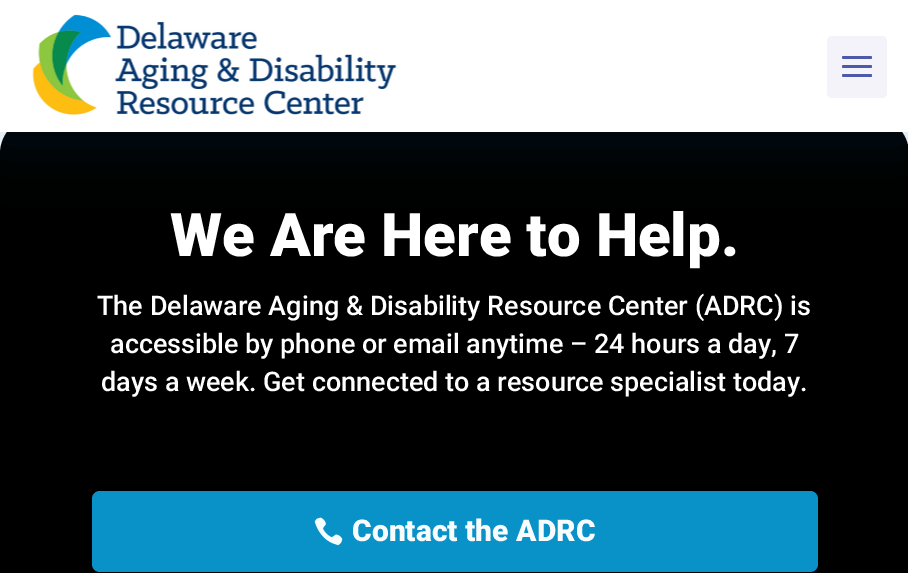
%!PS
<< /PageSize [908 573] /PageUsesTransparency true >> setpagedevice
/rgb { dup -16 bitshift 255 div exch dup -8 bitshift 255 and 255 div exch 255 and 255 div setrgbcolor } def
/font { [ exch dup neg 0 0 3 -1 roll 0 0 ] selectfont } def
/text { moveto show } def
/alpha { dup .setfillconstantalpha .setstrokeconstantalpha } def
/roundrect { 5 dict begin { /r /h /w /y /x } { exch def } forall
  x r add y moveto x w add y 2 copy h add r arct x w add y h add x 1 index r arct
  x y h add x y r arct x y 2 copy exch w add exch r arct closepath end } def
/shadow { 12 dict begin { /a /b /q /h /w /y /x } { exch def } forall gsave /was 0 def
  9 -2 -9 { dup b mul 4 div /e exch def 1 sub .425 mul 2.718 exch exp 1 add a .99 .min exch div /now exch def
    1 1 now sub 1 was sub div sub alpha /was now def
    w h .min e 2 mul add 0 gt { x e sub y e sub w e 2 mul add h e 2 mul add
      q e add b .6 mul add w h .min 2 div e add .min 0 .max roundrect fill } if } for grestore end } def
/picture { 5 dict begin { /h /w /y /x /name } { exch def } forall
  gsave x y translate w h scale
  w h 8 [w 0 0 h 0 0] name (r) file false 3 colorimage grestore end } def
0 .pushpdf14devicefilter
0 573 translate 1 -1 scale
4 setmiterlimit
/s1 { /Roboto-Black 60 font 16#FFFFFF rgb } def
/s2 { /Roboto-Medium 27 font 16#FFFFFF rgb } def
/s3 { /Roboto-Black 30 font 16#F8FCFD rgb } def
16#FFFFFF rgb
0 0 908 573 rectfill
16#000000 rgb
38 116 moveto 871 116 lineto 892 116 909 133 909 154 curveto 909 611 lineto 0 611 lineto 0 154 lineto 0 133 17 116 38 116 curveto closepath fill
16#005191 rgb
0 8 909 132 0 30 0.2 shadow
16#FFFFFF rgb
0 0 908 132 rectfill
(pic1.raw) 32 14 365 101 picture
16#F3F3F9 rgb
827 36 60 62 5 roundrect fill
16#4D5AAA rgb
842 65 30 3 1.5 roundrect fill
842 56 30 3 1.5 roundrect fill
842 74 30 3 1.5 roundrect fill
s1
(We Are Here to Help.) 170 256 text
s2
(The Delaware Aging & Disability Resource Center \(ADRC\) is) 97 315 text
(accessible by phone or email anytime – 24 hours a day, 7) 110 353 text
(days a week. Get connected to a resource specialist today.) 101 391 text
16#0992C8 rgb
92 491 726 81 8 roundrect fill
(pic2.raw) 314 517 29 29 picture
s3
(Contact the ADRC) 352 541 text
.poppdf14devicefilter showpage
